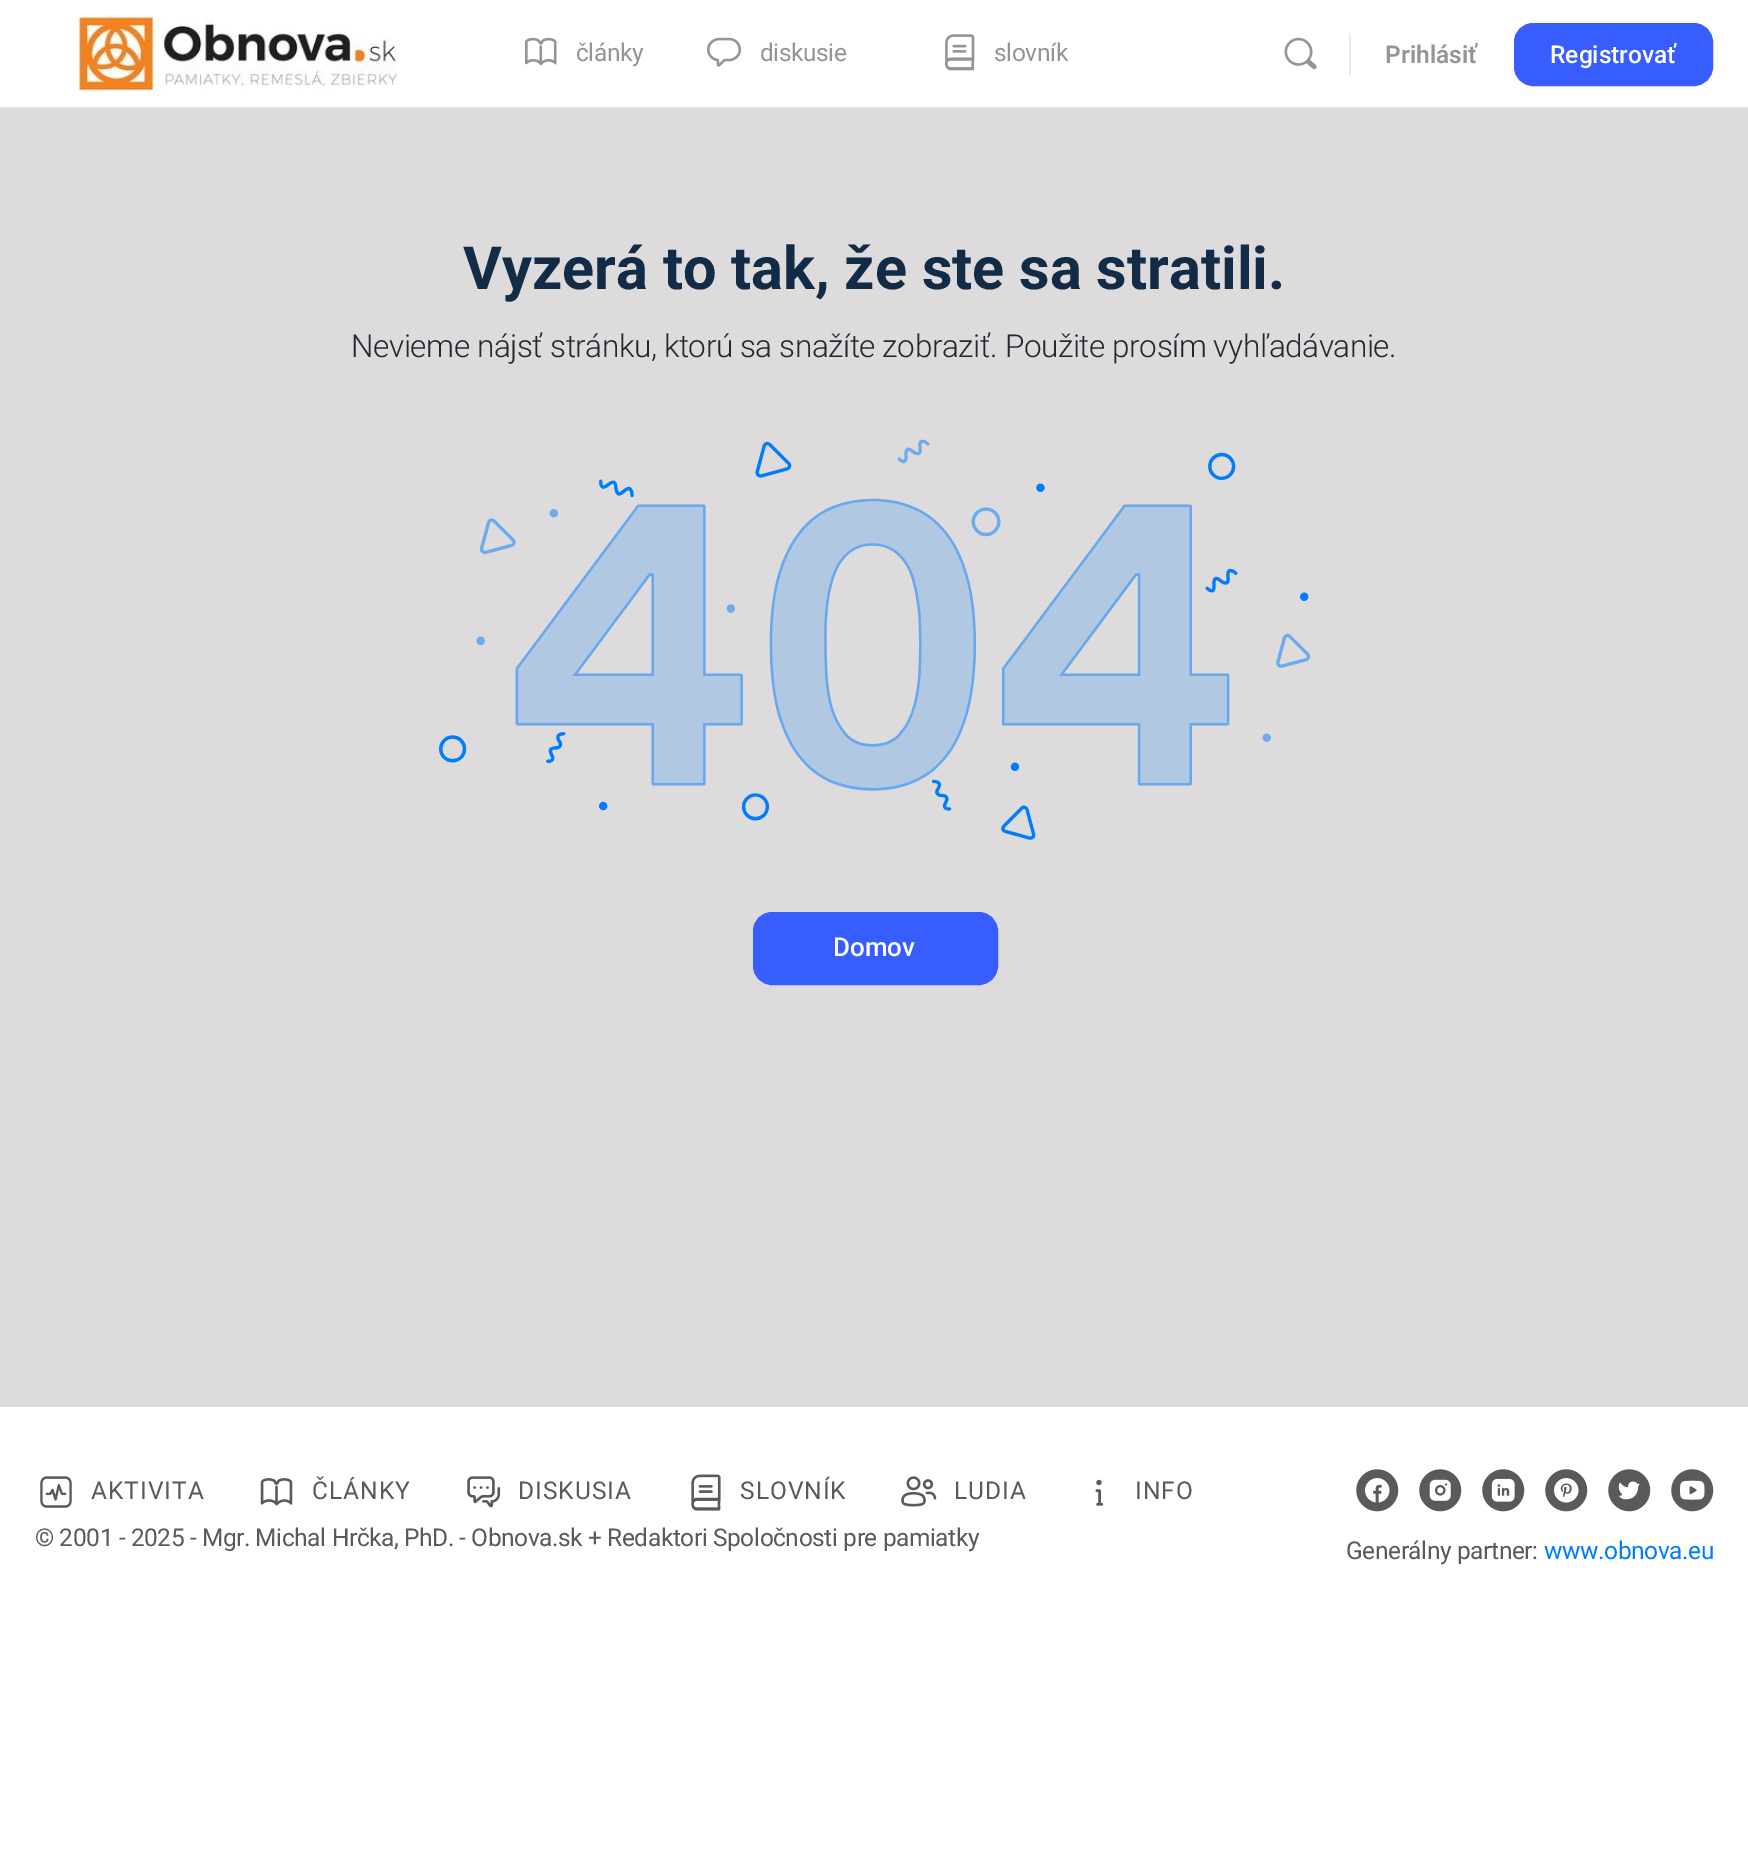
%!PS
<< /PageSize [1748 1854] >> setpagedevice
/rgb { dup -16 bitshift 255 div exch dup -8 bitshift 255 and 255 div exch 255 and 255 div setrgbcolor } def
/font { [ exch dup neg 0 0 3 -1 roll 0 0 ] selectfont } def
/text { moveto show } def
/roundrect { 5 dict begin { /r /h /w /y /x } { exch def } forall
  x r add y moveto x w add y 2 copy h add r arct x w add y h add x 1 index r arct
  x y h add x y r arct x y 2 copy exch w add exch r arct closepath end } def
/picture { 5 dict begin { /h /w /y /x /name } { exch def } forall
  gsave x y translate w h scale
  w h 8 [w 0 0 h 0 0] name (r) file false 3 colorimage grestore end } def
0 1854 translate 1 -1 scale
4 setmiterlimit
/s1 { /Roboto-SemiBold 24.5 font 16#939597 rgb } def
/s2 { /Roboto-Medium 24.5 font 16#FFFFFF rgb } def
/s3 { /Roboto-Bold 59.5 font 16#122B46 rgb } def
/s4 { /Roboto-Medium 26 font 16#FFFFFF rgb } def
16#DDDBDB rgb
0 0 1748 1854 rectfill
16#FFFFFF rgb
0 0 1748 107 rectfill
16#DCDFE3 rgb
0 107 1748 2 rectfill
(pic1.raw) 78 17 320 74 picture
(pic2.raw) 525 37 32 29 picture
/Roboto-Regular 24.5 font
16#939597 rgb
576 61 moveto -0.42 0 (články) ashow
(pic3.raw) 707 37 35 30 picture
760 61 moveto -0.42 0 (diskusie) ashow
(pic4.raw) 945 34 30 37 picture
994 61 moveto -0.42 0 (slovník) ashow
(pic5.raw) 1284 37 33 33 picture
16#E9EAEA rgb
1349 33 2 42 rectfill
s1
(Prihlásiť) 1385 63 text
16#385DFF rgb
1515 24 197 61 18 roundrect gsave fill grestore
2 setlinewidth
stroke
s2
(Registrovať) 1550 63 text
s3
(Vyzerá to tak, že ste sa stratili.) 463 289 text
/Roboto-Light 31.5 font
16#202930 rgb
351 357 moveto -0.42 0 (Nevieme nájsť stránku, ktorú sa snažíte zobraziť. Použite prosím vyhľadávanie.) ashow
(pic6.raw) 439 439 872 401 picture
16#385DFF rgb
754 913 243 71 18 roundrect gsave fill grestore
stroke
s4
(Domov) 833 956 text
0 1407 1748 447 rectfill
(pic7.raw) 40 1476 32 32 picture
/Roboto-Regular 24.5 font
16#5A5A5A rgb
91 1499 moveto 1 0 (AKTIVITA) ashow
(pic8.raw) 260 1478 33 28 picture
312 1499 moveto 1 0 (ČLÁNKY) ashow
(pic9.raw) 467 1476 34 32 picture
518 1499 moveto 1 0 (DISKUSIA) ashow
(pic10.raw) 691 1474 30 37 picture
740 1499 moveto 1 0 (SLOVNÍK) ashow
(pic11.raw) 901 1476 36 31 picture
954 1499 moveto 1 0 (LUDIA) ashow
(pic12.raw) 1095 1479 9 27 picture
1135 1499 moveto 1 0 (INFO) ashow
35 1546 moveto -0.42 0 (© 2001 - 2025 - Mgr. Michal Hrčka, PhD. - Obnova.sk + Redaktori Spoločnosti pre pamiatky) ashow
(pic13.raw) 1356 1469 43 43 picture
(pic14.raw) 1419 1469 43 43 picture
(pic15.raw) 1482 1469 43 43 picture
(pic16.raw) 1545 1469 43 43 picture
(pic17.raw) 1608 1469 43 43 picture
(pic18.raw) 1671 1469 43 43 picture
1346 1559 moveto -0.42 0 (Generálny partner:) ashow
16#007CFF rgb
1544 1559 moveto -0.42 0 (www.obnova.eu) ashow
showpage
